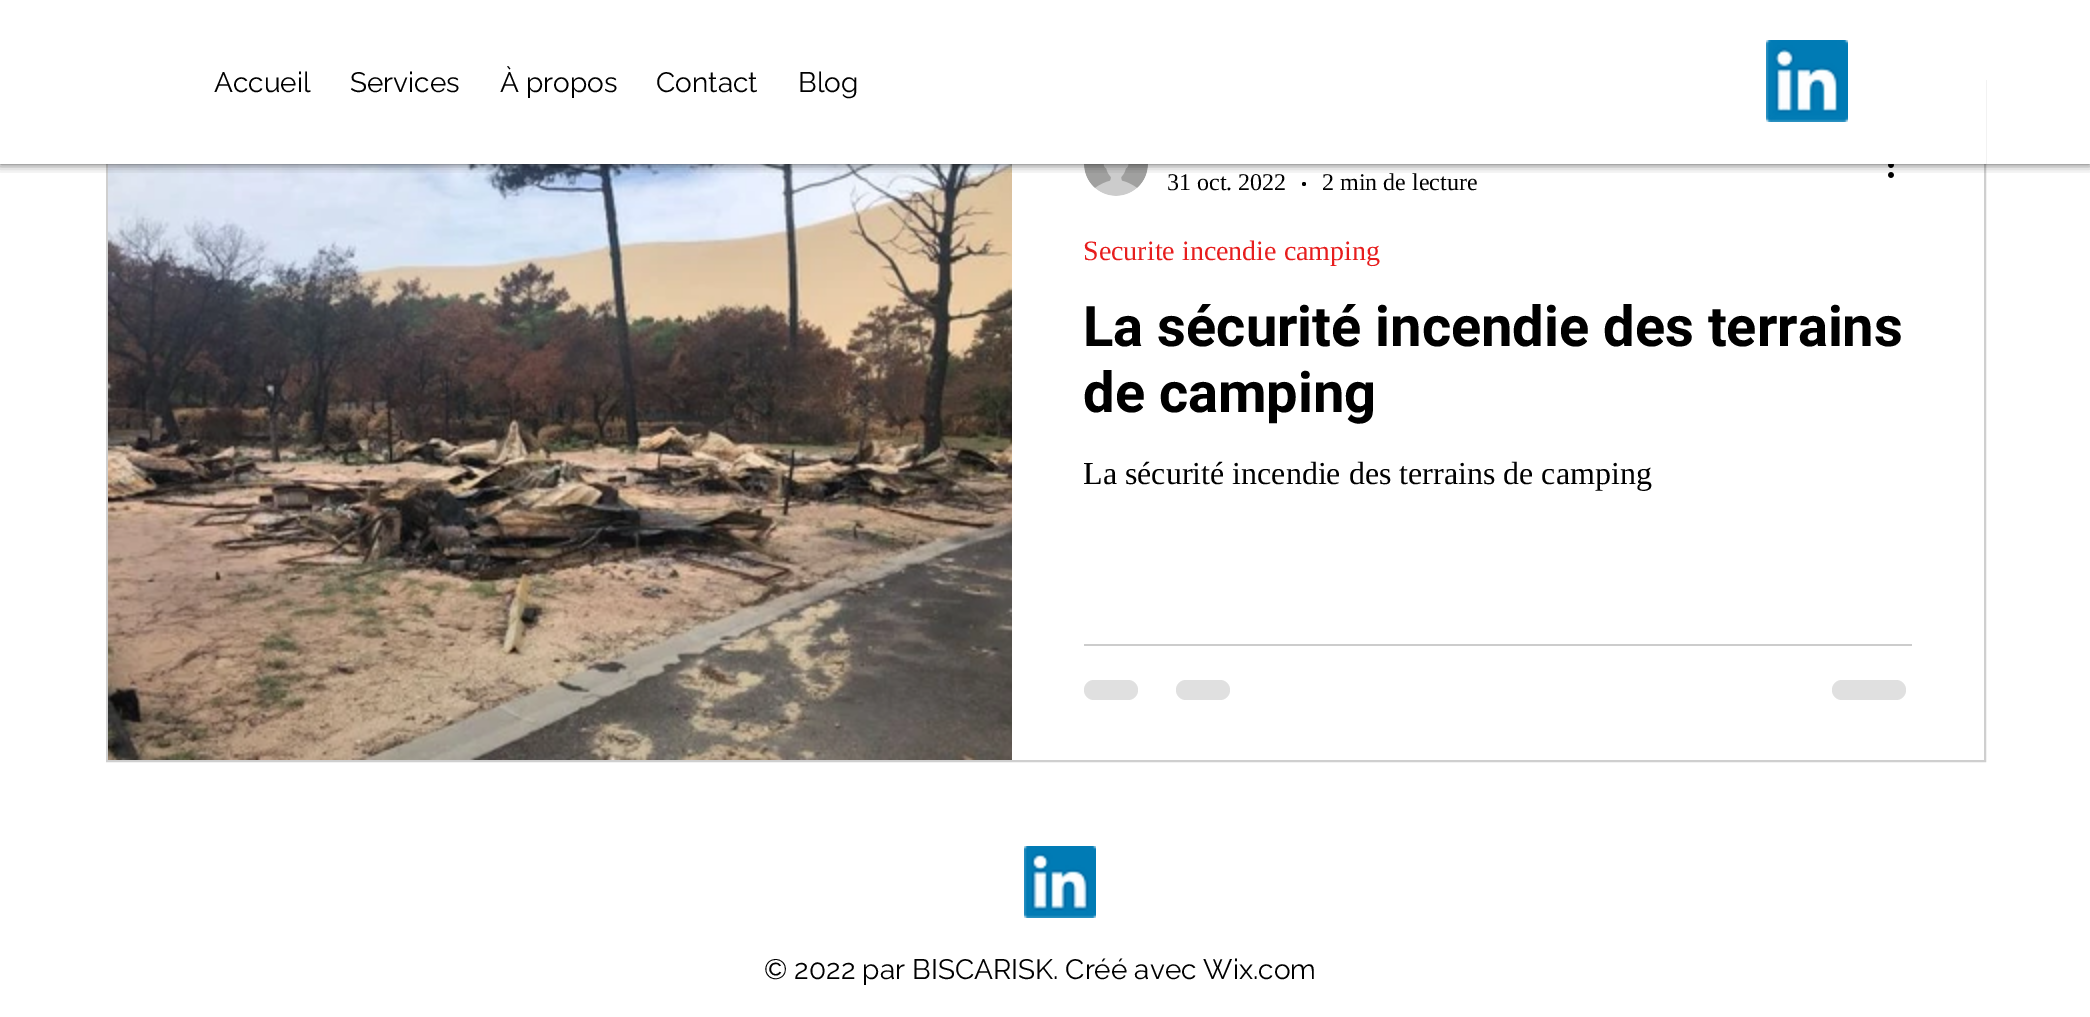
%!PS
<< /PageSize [2090 1017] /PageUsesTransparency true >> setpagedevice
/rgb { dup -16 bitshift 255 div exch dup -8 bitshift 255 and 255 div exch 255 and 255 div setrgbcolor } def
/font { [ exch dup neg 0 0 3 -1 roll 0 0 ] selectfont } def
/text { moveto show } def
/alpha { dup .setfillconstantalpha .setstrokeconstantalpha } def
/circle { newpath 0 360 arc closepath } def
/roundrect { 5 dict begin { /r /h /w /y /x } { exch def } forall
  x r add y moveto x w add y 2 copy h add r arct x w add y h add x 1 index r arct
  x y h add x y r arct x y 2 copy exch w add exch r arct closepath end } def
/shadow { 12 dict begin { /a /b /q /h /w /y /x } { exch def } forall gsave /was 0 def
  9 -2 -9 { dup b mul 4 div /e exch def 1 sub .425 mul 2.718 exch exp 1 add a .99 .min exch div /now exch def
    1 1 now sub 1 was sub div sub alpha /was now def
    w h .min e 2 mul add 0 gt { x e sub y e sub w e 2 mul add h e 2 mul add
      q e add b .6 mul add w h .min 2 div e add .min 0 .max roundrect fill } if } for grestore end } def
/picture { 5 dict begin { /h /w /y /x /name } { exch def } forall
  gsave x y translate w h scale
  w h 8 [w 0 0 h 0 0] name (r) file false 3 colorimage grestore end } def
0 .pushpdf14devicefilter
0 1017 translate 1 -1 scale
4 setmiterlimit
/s1 { /Raleway-Regular 28 font 16#000000 rgb } def
/s2 { /LiberationSerif-Regular 24 font 16#000000 rgb } def
/s3 { /LiberationSerif-Regular 28 font 16#E71D1D rgb } def
/s4 { /Roboto-Bold 56 font 16#000000 rgb } def
/s5 { /LiberationSerif-Regular 32 font 16#000000 rgb } def
16#FFFFFF rgb
0 0 2090 1017 rectfill
16#CFCFCF rgb
2 setlinewidth
107 81 1878 680 rectstroke
(pic2.raw) 108 164 904 596 picture
(pic3.raw) 1888 164 6 14 picture
(pic4.raw) 1084 164 64 32 picture
gsave
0 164 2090 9 rectclip
16#000000 rgb
0 0 2090 164 0 5 0.7 shadow
grestore
0.9 alpha
16#FFFFFF rgb
106 80 1880 84 rectfill
1 alpha
106 80 1880 84 rectfill
s1
(Accueil) 214 92 text
(Services) 350 92 text
(À propos) 500 92 text
(Contact) 656 92 text
(Blog) 798 92 text
(pic1.raw) 1766 40 82 82 picture
s2
(31 oct. 2022) 1167 190 text
1304 184 2 circle fill
(2 min de lecture) 1322 190 text
s3
(Securite incendie camping) 1083 260 text
s4
(La sécurité incendie des terrains) 1083 346 text
(de camping) 1083 412 text
s5
(La sécurité incendie des terrains de camping) 1083 484 text
16#CCCCCC rgb
1084 644 828 2 rectfill
16#E0E0E0 rgb
1084 680 54 20 10 roundrect fill
1176 680 54 20 10 roundrect fill
1832 680 74 20 10 roundrect fill
(pic5.raw) 1024 846 72 72 picture
s1
(© 2022 par BISCARISK. Créé avec Wix.com) 764 979 text
.poppdf14devicefilter showpage
